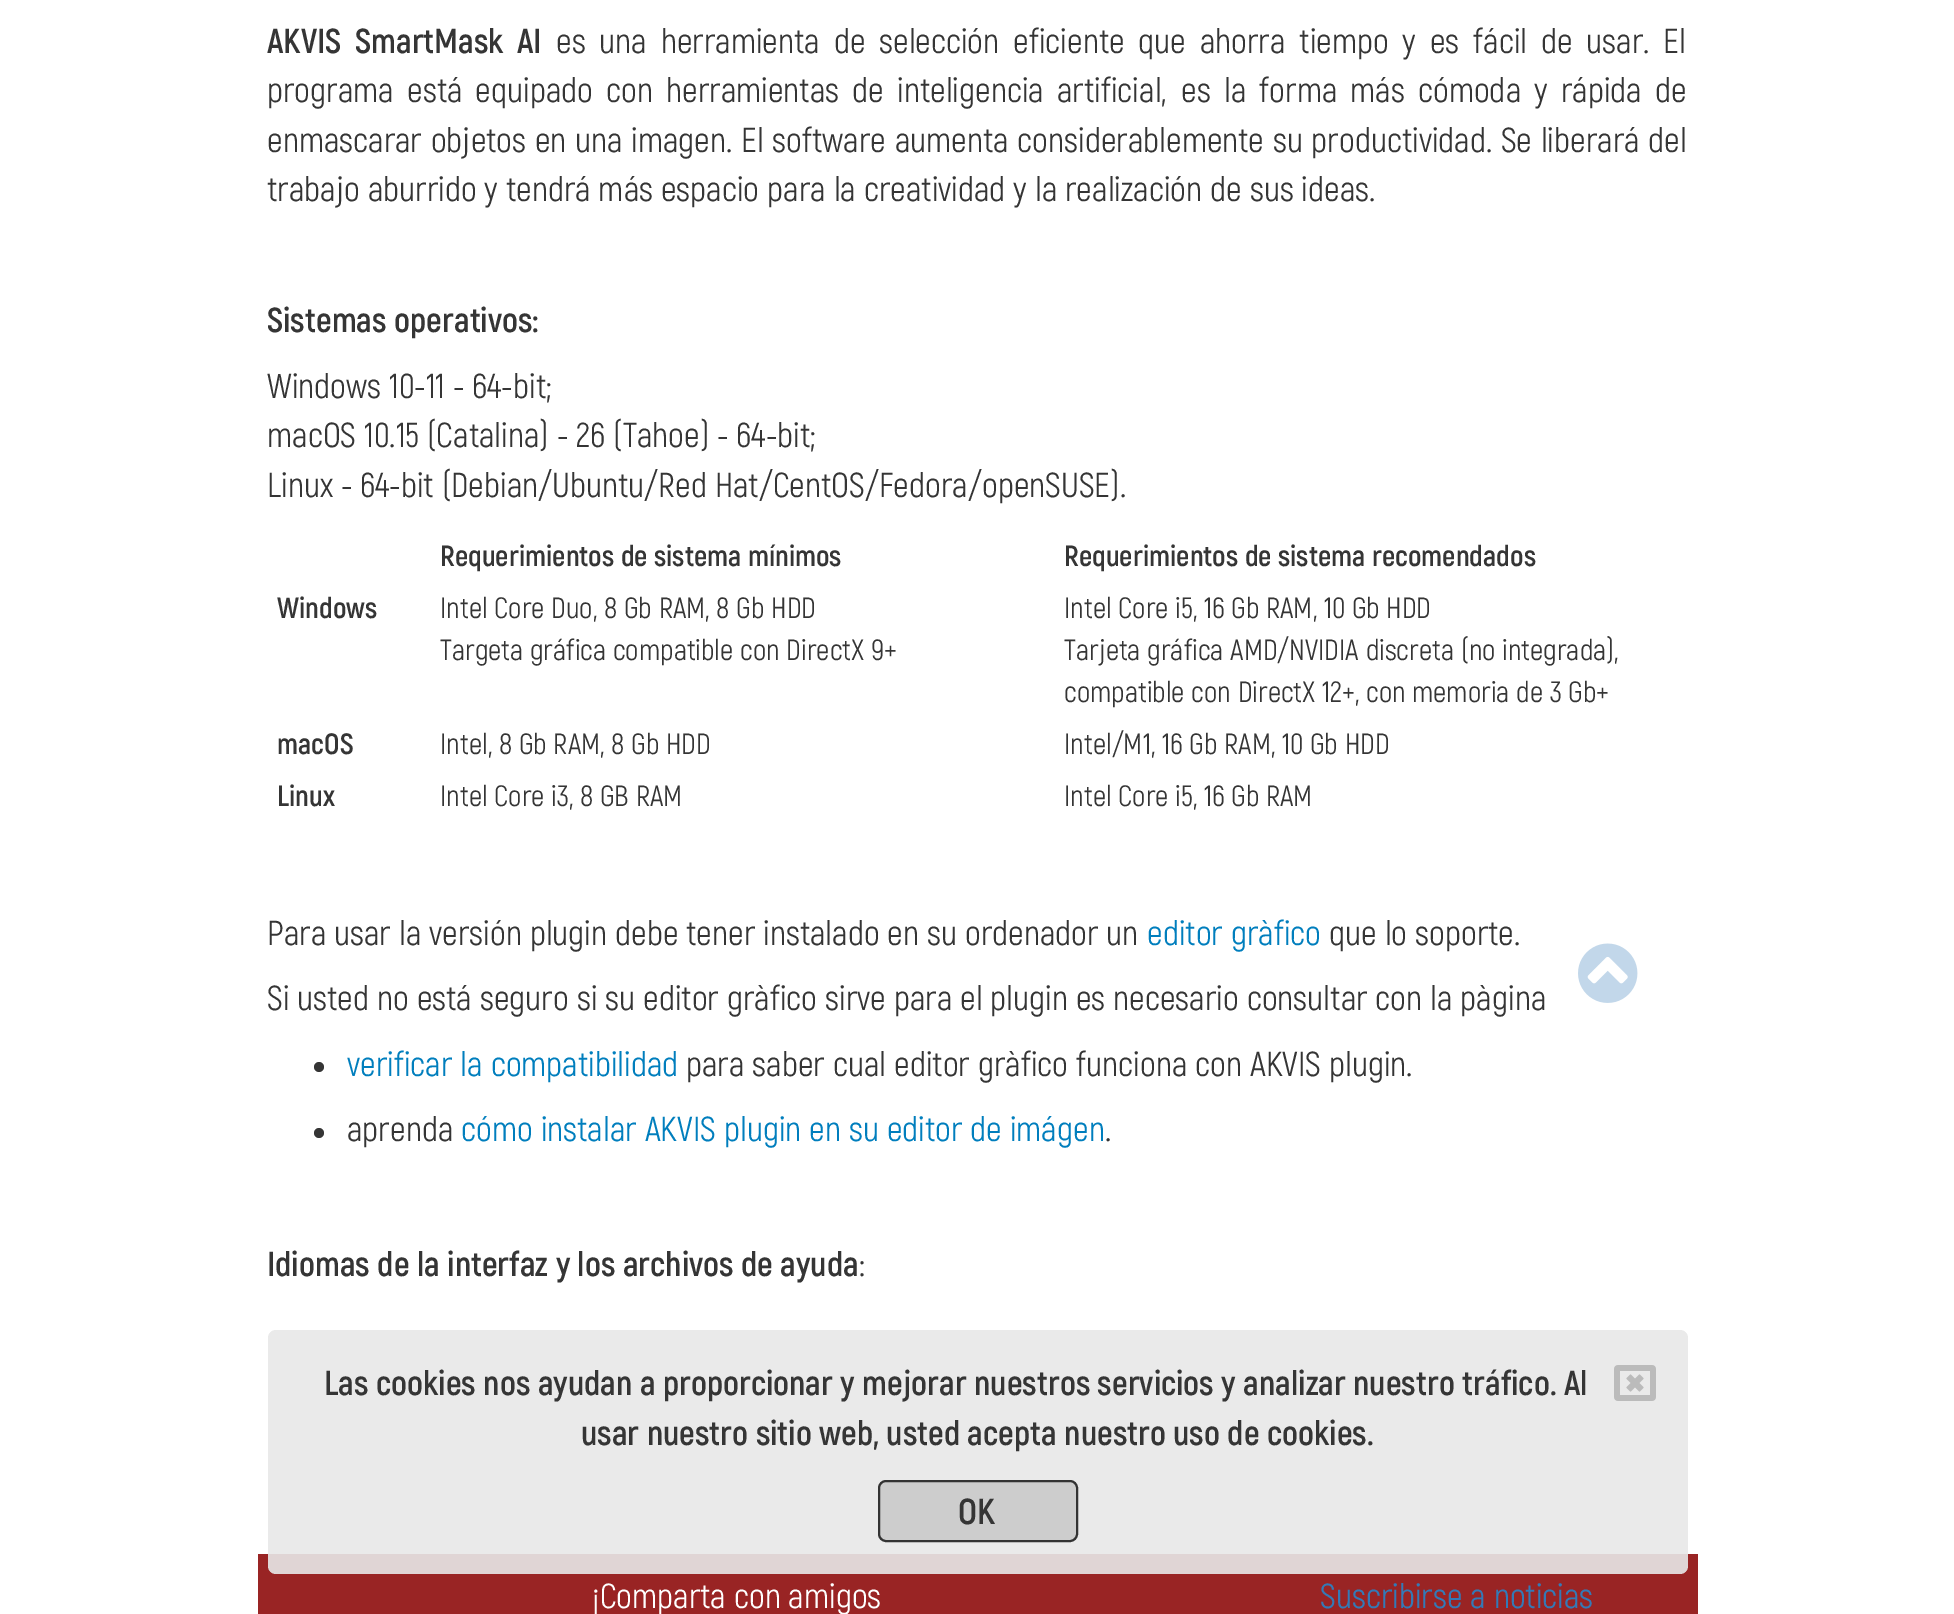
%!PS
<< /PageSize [1954 1614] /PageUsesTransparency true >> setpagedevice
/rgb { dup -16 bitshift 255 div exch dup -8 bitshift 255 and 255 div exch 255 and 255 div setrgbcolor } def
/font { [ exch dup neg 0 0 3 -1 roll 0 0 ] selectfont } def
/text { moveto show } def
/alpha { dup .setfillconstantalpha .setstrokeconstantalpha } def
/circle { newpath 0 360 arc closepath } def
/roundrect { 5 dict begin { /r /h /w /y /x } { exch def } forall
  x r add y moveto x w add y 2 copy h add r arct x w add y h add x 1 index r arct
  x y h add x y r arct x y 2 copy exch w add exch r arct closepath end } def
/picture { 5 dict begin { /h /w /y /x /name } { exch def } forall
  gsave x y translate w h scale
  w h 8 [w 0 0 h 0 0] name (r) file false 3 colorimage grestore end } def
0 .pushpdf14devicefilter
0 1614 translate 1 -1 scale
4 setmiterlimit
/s1 { /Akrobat-Regular 34.65 font 16#353535 rgb } def
/s2 { /Akrobat-Bold 34.65 font 16#353535 rgb } def
/s3 { /Akrobat-Bold 29.3 font 16#353535 rgb } def
/s4 { /Akrobat-Regular 29.3 font 16#353535 rgb } def
/s5 { /Akrobat-Regular 34.65 font 16#007EBD rgb } def
/s6 { /Akrobat-Bold 36 font 16#353535 rgb } def
/s7 { /Akrobat-Regular 34.65 font 16#FFFFFF rgb } def
/s8 { /Akrobat-Regular 34.65 font 16#337AB7 rgb } def
16#FFFFFF rgb
0 0 1954 1614 rectfill
/Akrobat-Bold 34.65 font
16#353535 rgb
267 53 moveto 5.9 0 32 (AKVIS SmartMask AI) widthshow
/Akrobat-Regular 34.65 font
556 53 moveto 5.9 0 32 (es una herramienta de selección eficiente que ahorra tiempo y es fácil de usar. El) widthshow
267 102 moveto 5.25 0 32 (programa está equipado con herramientas de inteligencia artificial,) widthshow
1181 102 moveto 5.25 0 32 (es la forma más cómoda y rápida de) widthshow
267 152 moveto 0.75 0 32 (enmascarar objetos en una imagen. El software aumenta considerablemente su productividad. Se liberará del) widthshow
(trabajo aburrido y tendrá más espacio para la creatividad y la realización de sus ideas.) 267 201 text
s2
(Sistemas operativos:) 267 332 text
s1
(Windows 10-11 - 64-bit;) 267 398 text
(macOS 10.15 \(Catalina\) - 26 \(Tahoe\) - 64-bit;) 267 447 text
(Linux - 64-bit \(Debian/Ubuntu/Red Hat/CentOS/Fedora/openSUSE\).) 267 497 text
s3
(Requerimientos de sistema mínimos) 440 566 text
(Requerimientos de sistema recomendados) 1064 566 text
(Windows) 277 618 text
s4
(Intel Core Duo, 8 Gb RAM, 8 Gb HDD) 440 618 text
(Targeta gráfica compatible con DirectX 9+) 440 660 text
(Intel Core i5, 16 Gb RAM, 10 Gb HDD) 1064 618 text
(Tarjeta gráfica AMD/NVIDIA discreta \(no integrada\),) 1064 660 text
(compatible con DirectX 12+, con memoria de 3 Gb+) 1064 702 text
s3
(macOS) 277 754 text
s4
(Intel, 8 Gb RAM, 8 Gb HDD) 440 754 text
(Intel/M1, 16 Gb RAM, 10 Gb HDD) 1064 754 text
s3
(Linux) 277 806 text
s4
(Intel Core i3, 8 GB RAM) 440 806 text
(Intel Core i5, 16 Gb RAM) 1064 806 text
s1
(Para usar la versión plugin debe tener instalado en su ordenador un) 267 945 text
s5
(editor gràfico) 1147 945 text
s1
(que lo soporte.) 1329 945 text
(Si usted no está seguro si su editor gràfico sirve para el plugin es necesario consultar con la pàgina) 267 1010 text
319 1067 5 circle fill
s5
(verificar la compatibilidad) 347 1076 text
s1
(para saber cual editor gràfico funciona con AKVIS plugin.) 686 1076 text
319 1133 5 circle fill
(aprenda) 347 1141 text
s5
(cómo instalar AKVIS plugin en su editor de imágen) 461 1141 text
s1
(.) 1105 1141 text
s2
(Idiomas de la interfaz y los archivos de ayuda) 267 1276 text
s1
(:) 859 1276 text
(pic1.raw) 1578 943 60 60 picture
16#992424 rgb
258 1554 1440 60 rectfill
0.9 alpha
16#E8E8E8 rgb
268 1330 1420 244 8 roundrect fill
1 alpha
s2
(Las cookies nos ayudan a proporcionar y mejorar nuestros servicios y analizar nuestro tráfico. Al) 324 1395 text
(pic2.raw) 1614 1365 42 36 picture
(usar nuestro sitio web, usted acepta nuestro uso de cookies.) 581 1445 text
16#CDCDCD rgb
879 1481 198 60 7 roundrect gsave fill grestore
16#333333 rgb
2 setlinewidth
stroke
s6
(OK) 958 1524 text
s7
(¡Comparta con amigos) 592 1608 text
s8
(Suscribirse a noticias) 1320 1608 text
.poppdf14devicefilter showpage
